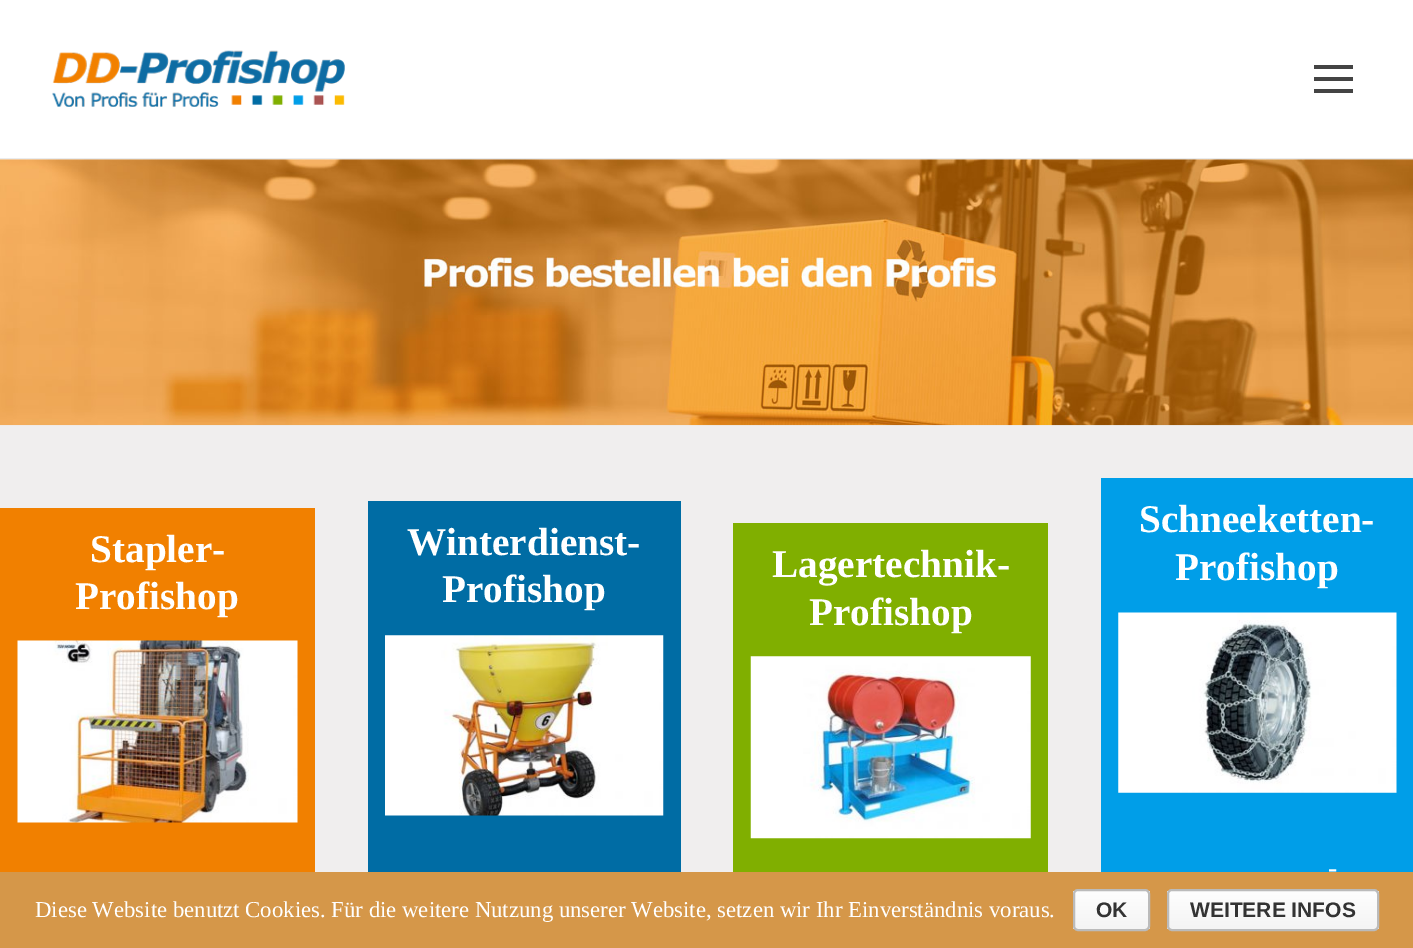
%!PS
<< /PageSize [1413 948] >> setpagedevice
/rgb { dup -16 bitshift 255 div exch dup -8 bitshift 255 and 255 div exch 255 and 255 div setrgbcolor } def
/font { [ exch dup neg 0 0 3 -1 roll 0 0 ] selectfont } def
/text { moveto show } def
/roundrect { 5 dict begin { /r /h /w /y /x } { exch def } forall
  x r add y moveto x w add y 2 copy h add r arct x w add y h add x 1 index r arct
  x y h add x y r arct x y 2 copy exch w add exch r arct closepath end } def
/picture { 5 dict begin { /h /w /y /x /name } { exch def } forall
  gsave x y translate w h scale
  w h 8 [w 0 0 h 0 0] name (r) file false 3 colorimage grestore end } def
0 948 translate 1 -1 scale
4 setmiterlimit
/s1 { /LiberationSerif-Bold 39.25 font 16#FFFFFF rgb } def
/s2 { /LiberationSerif-Regular 28 font 16#FFFFFF rgb } def
/s3 { /LiberationSerif-Regular 22.75 font 16#FFFFFF rgb } def
/s4 { /LiberationSans-Bold 21 font 16#333333 rgb } def
16#FFFFFF rgb
0 0 1413 948 rectfill
16#EAECEE rgb
0 158 1413 1 rectfill
(pic1.raw) 52 50 293 57 picture
16#444444 rgb
1314 77 39 4 rectfill
1314 65 39 4 rectfill
1314 89 39 4 rectfill
16#F0EEEE rgb
0 159 1413 713 rectfill
(pic2.raw) 0 159 1413 267 picture
16#F18000 rgb
0 508 315 364 rectfill
s1
(Stapler-) 90 562 text
(Profishop) 75 609 text
(pic3.raw) 17 640 281 183 picture
16#006CA4 rgb
368 501 313 371 rectfill
s1
(Winterdienst-) 407 555 text
(Profishop) 442 602 text
(pic4.raw) 385 635 279 181 picture
16#80AF00 rgb
733 523 315 349 rectfill
s1
(Lagertechnik-) 772 577 text
(Profishop) 809 625 text
(pic5.raw) 750 656 281 183 picture
16#009EE8 rgb
1101 478 312 394 rectfill
s1
(Schneeketten-) 1139 532 text
(Profishop) 1175 580 text
(pic6.raw) 1118 612 279 181 picture
s2
(-) 1328 877 text
16#D59749 rgb
0 872 1413 76 rectfill
s3
(Diese Website benutzt Cookies. Für die weitere Nutzung unserer Website, setzen wir Ihr Einverständnis voraus.) 35 917 text
gsave
1073 889 77 42 5 roundrect clip newpath
gsave 1073 891 moveto 1150 891 lineto 1150 929 lineto 1073 929 lineto closepath clip newpath
<< /ShadingType 2 /ColorSpace /DeviceRGB /Coords [1111 891 1111 929] /Extend [true true] /Function << /FunctionType 2 /Domain [0 1] /C0 [0.996 0.996 0.996] /C1 [0.957 0.957 0.957] /N 1 >> >> shfill grestore
grestore
16#BBBBBB rgb
2 setlinewidth
1074 890 75 40 4 roundrect stroke
s4
(OK) 1096 917 text
gsave
1167 889 212 42 5 roundrect clip newpath
gsave 1167 891 moveto 1379 891 lineto 1379 929 lineto 1167 929 lineto closepath clip newpath
<< /ShadingType 2 /ColorSpace /DeviceRGB /Coords [1273 891 1273 929] /Extend [true true] /Function << /FunctionType 2 /Domain [0 1] /C0 [0.996 0.996 0.996] /C1 [0.957 0.957 0.957] /N 1 >> >> shfill grestore
grestore
16#BBBBBB rgb
1168 890 210 40 4 roundrect stroke
s4
(WEITERE INFOS) 1190 917 text
showpage
